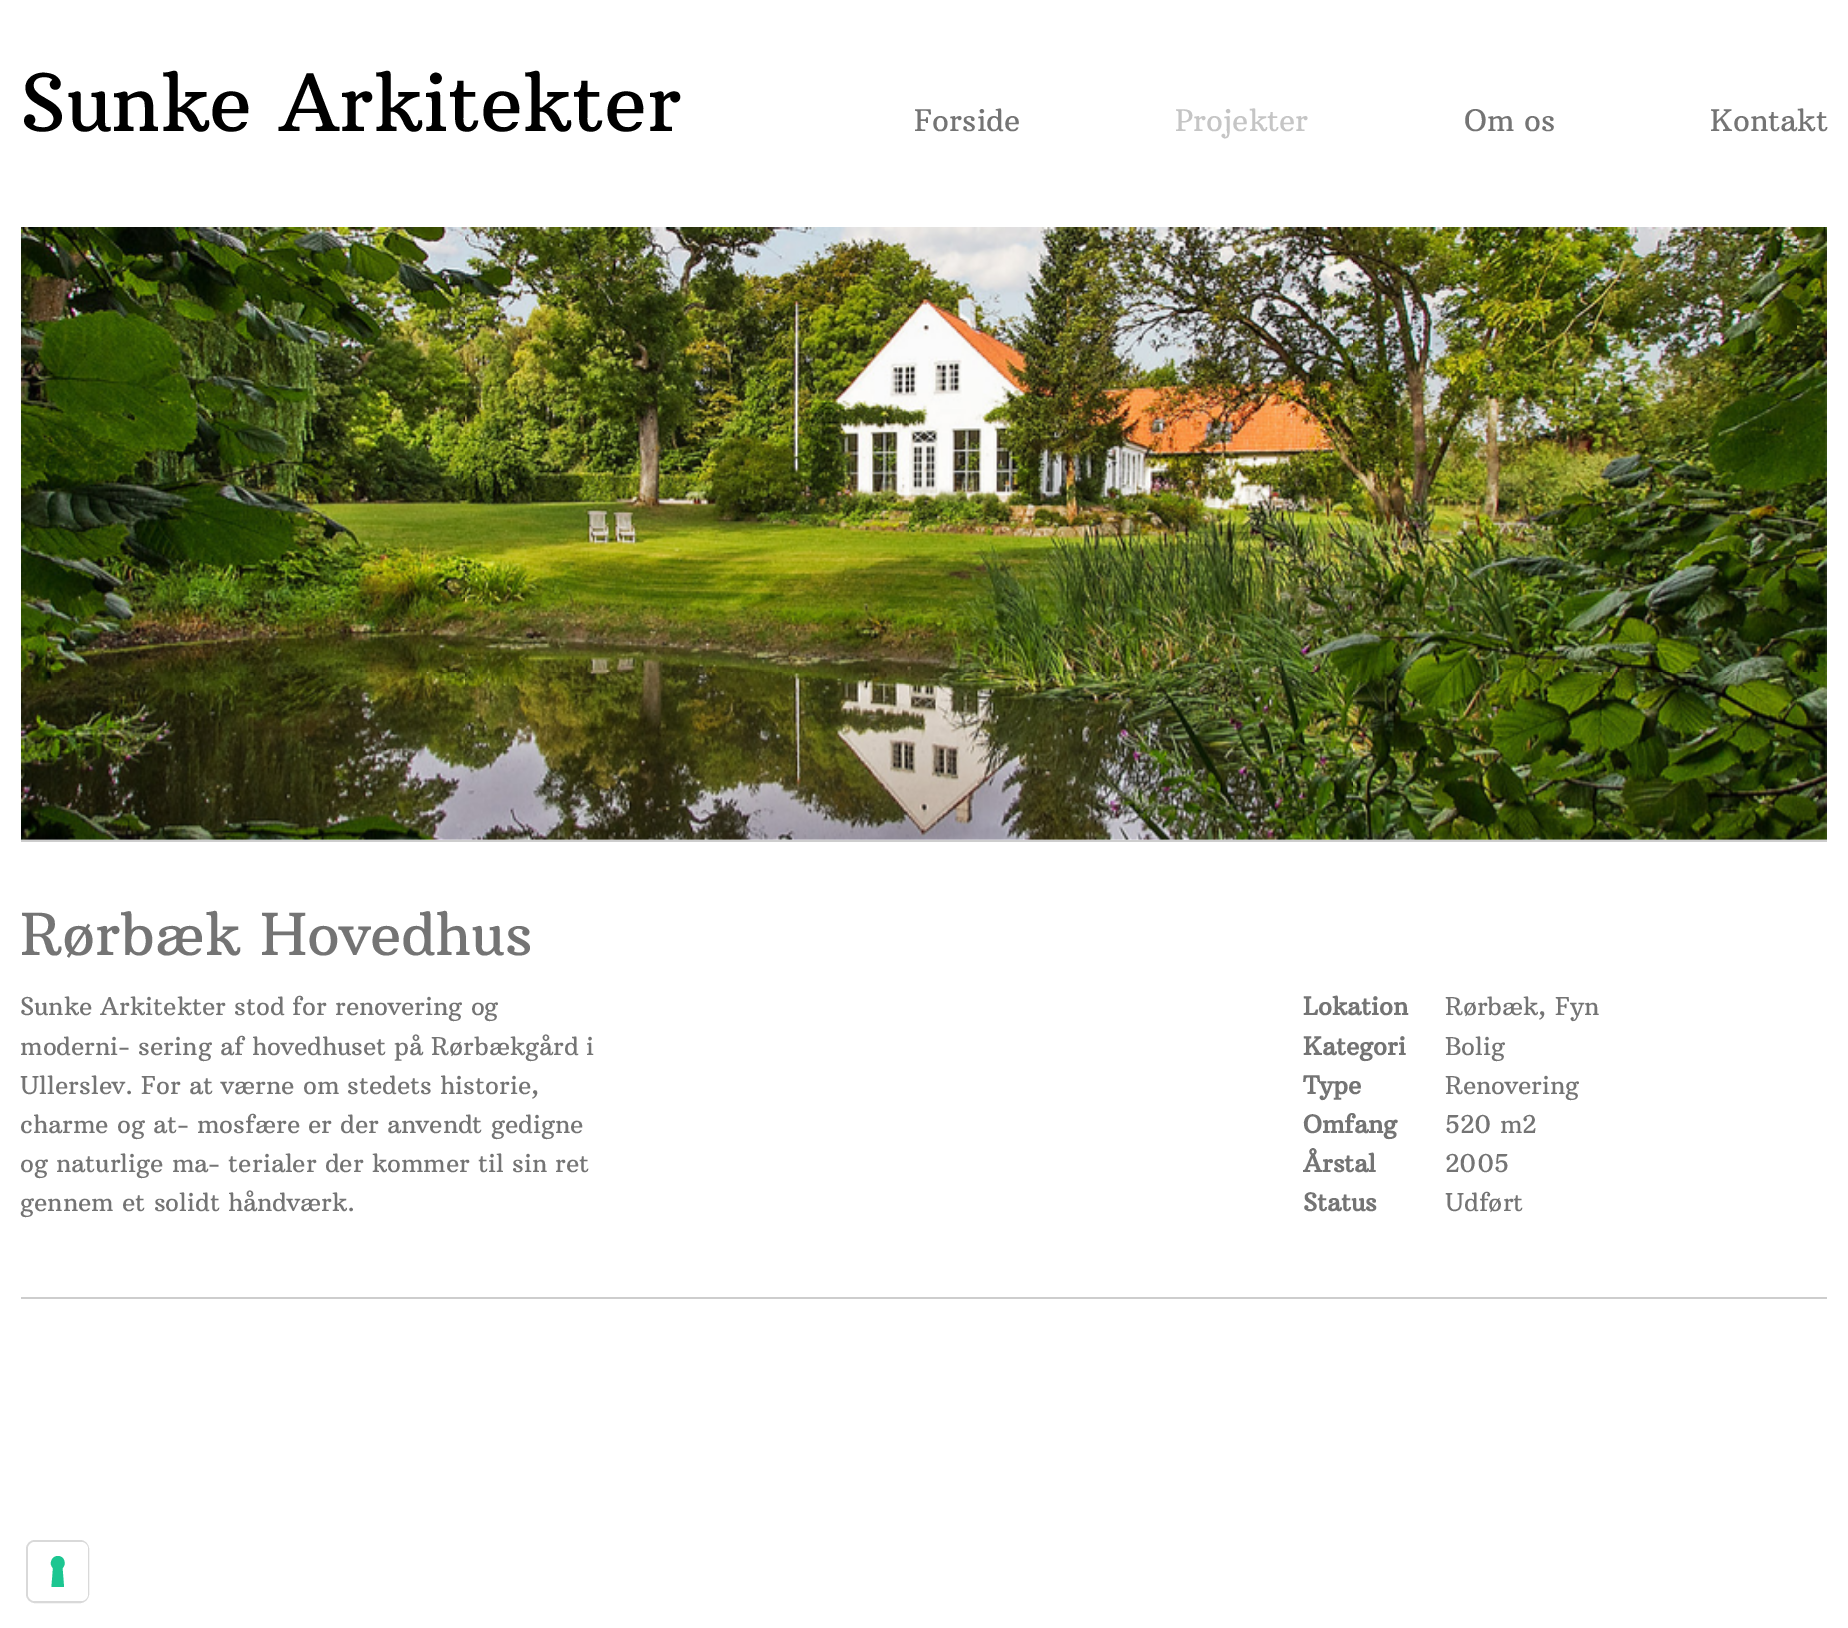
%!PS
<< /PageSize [1848 1628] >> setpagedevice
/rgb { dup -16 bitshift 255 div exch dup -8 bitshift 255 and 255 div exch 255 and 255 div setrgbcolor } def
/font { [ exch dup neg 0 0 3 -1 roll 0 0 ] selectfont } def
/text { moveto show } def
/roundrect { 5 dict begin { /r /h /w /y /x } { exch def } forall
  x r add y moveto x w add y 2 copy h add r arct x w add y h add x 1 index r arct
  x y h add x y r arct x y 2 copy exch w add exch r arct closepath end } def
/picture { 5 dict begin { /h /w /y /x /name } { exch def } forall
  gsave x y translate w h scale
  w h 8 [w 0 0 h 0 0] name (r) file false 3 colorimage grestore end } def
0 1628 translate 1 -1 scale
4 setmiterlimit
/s1 { /ArbutusSlab-Regular 78.75 font 16#000000 rgb } def
/s2 { /ArbutusSlab-Regular 29.75 font 16#747474 rgb } def
/s3 { /ArbutusSlab-Regular 29.75 font 16#C5C5C5 rgb } def
/s4 { /ArbutusSlab-Regular 57.75 font 16#747474 rgb } def
/s5 { /ArbutusSlab-Regular 24.5 font 16#747474 rgb } def
/s6 { /ArbutusSlab-Bold 24.5 font 16#747474 rgb } def
16#FFFFFF rgb
0 0 1848 1628 rectfill
s1
(Sunke Arkitekter) 20 131 text
s2
(Forside) 914 131 text
s3
(Projekter) 1175 131 text
s2
(Om os) 1464 131 text
(Kontakt) 1710 131 text
16#CDCDCD rgb
21 840 1806 2 rectfill
(pic1.raw) 21 227 1806 613 picture
s4
(Rørbæk Hovedhus) 20 955 text
s5
(Sunke Arkitekter stod for renovering og) 20 1015 text
(moderni- sering af hovedhuset på Rørbækgård i) 20 1055 text
(Ullerslev. For at værne om stedets historie,) 20 1094 text
(charme og at- mosfære er der anvendt gedigne) 20 1133 text
(og naturlige ma- terialer der kommer til sin ret) 20 1172 text
(gennem et solidt håndværk.) 20 1211 text
s6
(Lokation) 1303 1015 text
s5
(Rørbæk, Fyn) 1445 1015 text
s6
(Kategori) 1303 1055 text
s5
(Bolig) 1445 1055 text
s6
(Type) 1303 1094 text
s5
(Renovering) 1445 1094 text
s6
(Omfang) 1303 1133 text
s5
(520 m2) 1445 1133 text
s6
(Årstal) 1303 1172 text
s5
(2005) 1445 1172 text
s6
(Status) 1303 1211 text
s5
(Udført) 1445 1211 text
16#CDCDCD rgb
21 1297 1806 2 rectfill
16#D9D9D9 rgb
2 setlinewidth
27 1541 61 61 8 roundrect stroke
16#FFFFFF rgb
28 1542 60 59 7 roundrect fill
16#1CC691 rgb
58 1556 moveto 64 1556 67 1564 62.5 1568 curveto 64 1587 lineto 51.5 1587 lineto 53 1568 lineto 48.5 1564 51.5 1556 58 1556 curveto closepath eofill
showpage
